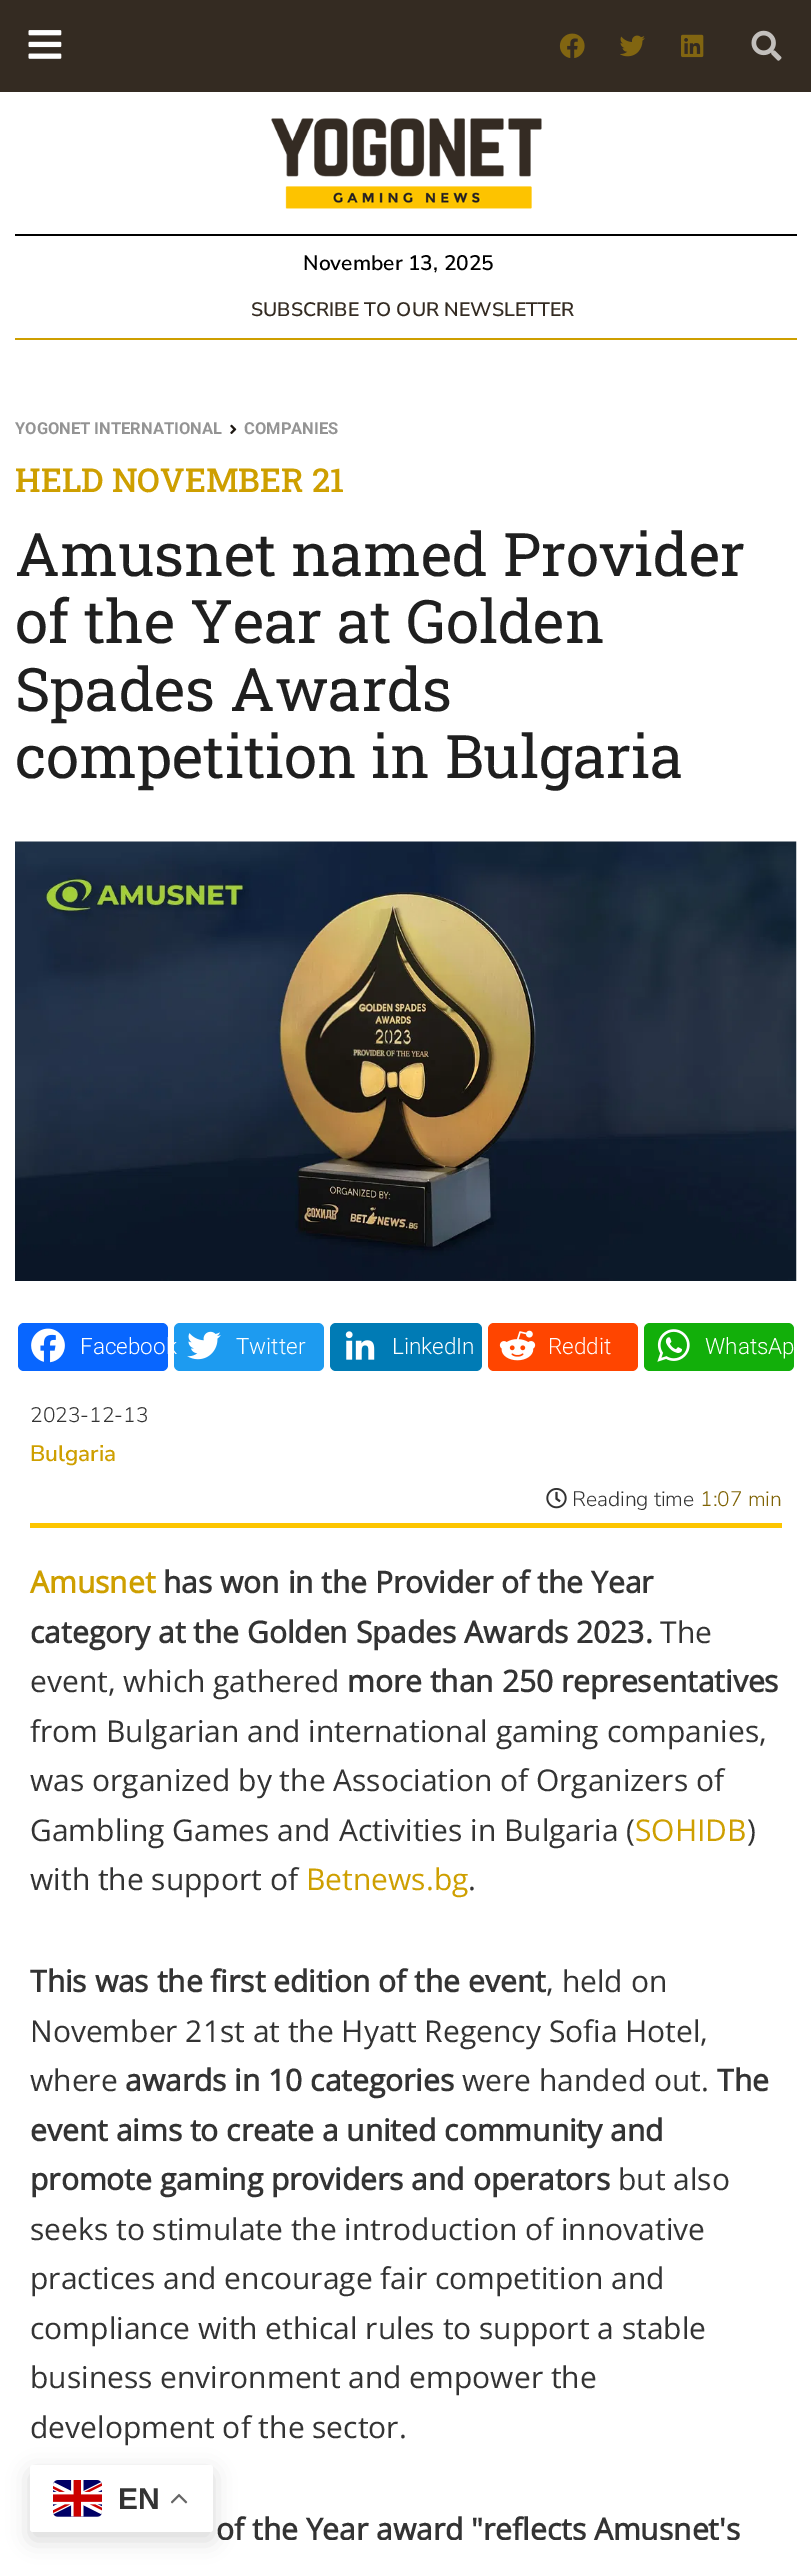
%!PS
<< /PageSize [811 2569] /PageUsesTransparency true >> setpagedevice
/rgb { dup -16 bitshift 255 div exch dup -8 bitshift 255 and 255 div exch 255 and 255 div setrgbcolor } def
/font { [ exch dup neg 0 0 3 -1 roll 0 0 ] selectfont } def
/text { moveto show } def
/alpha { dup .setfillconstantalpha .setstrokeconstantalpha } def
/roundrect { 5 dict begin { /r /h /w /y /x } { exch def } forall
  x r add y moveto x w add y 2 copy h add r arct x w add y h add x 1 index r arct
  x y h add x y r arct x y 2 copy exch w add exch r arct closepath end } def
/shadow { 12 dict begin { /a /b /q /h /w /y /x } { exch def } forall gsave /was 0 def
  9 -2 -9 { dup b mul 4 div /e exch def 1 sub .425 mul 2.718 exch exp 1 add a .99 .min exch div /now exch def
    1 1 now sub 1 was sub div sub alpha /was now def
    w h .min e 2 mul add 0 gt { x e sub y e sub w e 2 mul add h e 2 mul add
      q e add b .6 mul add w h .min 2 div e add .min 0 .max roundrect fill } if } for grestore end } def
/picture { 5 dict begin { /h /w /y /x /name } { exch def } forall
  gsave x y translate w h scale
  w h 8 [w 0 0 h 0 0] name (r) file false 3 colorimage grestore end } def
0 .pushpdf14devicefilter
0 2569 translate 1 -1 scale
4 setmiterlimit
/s1 { /NunitoSans-SemiBold 21 font 16#000000 rgb } def
/s2 { /NunitoSans-SemiBold 19.5 font 16#342B22 rgb } def
/s3 { /Roboto-Bold 16.5 font 16#949494 rgb } def
/s4 { /RobotoSlab-Medium 33 font 16#CE9F00 rgb } def
/s5 { /RobotoSlab-Regular 60 font 16#1F1F1F rgb } def
/s6 { /Roboto-Light 22.5 font 16#FFFFFF rgb } def
/s7 { /NunitoSans-Light 21 font 16#333333 rgb } def
/s8 { /NunitoSans-SemiBold 22.5 font 16#CE9F00 rgb } def
/s9 { /NunitoSans-Light 21 font 16#7F6305 rgb } def
/s10 { /OpenSans-Bold 30 font 16#CE9F00 rgb } def
/s11 { /OpenSans-Bold 30 font 16#333333 rgb } def
/s12 { /OpenSans-Regular 30 font 16#333333 rgb } def
/s13 { /OpenSans-Regular 30 font 16#CE9F00 rgb } def
/s14 { /LiberationSans-Bold 30 font 16#333333 rgb } def
16#FFFFFF rgb
0 0 811 2569 rectfill
16#342B22 rgb
0 0 811 92 rectfill
(pic1.raw) 28 30 34 29 picture
(pic2.raw) 559 33 26 25 picture
(pic3.raw) 620 35 25 22 picture
(pic4.raw) 681 34 23 24 picture
(pic5.raw) 751 30 31 31 picture
(pic6.raw) 271 118 271 91 picture
16#000000 rgb
15 234 782 2 rectfill
16#CE9F00 rgb
15 338 782 2 rectfill
s1
(November 13, 2025) 303 270 text
s2
(SUBSCRIBE TO OUR NEWSLETTER) 251 316 text
s3
(YOGONET INTERNATIONAL) 15 434 text
(pic7.raw) 230 424 7 10 picture
(COMPANIES) 244 434 text
s4
(HELD NOVEMBER 21) 15 492 text
s5
(Amusnet named Provider) 15 576 text
(of the Year at Golden) 15 643 text
(Spades Awards) 15 711 text
(competition in Bulgaria) 15 778 text
(pic8.raw) 15 841 782 440 picture
16#0866FF rgb
18 1323 150 48 6 roundrect fill
(pic9.raw) 31 1328 34 35 picture
16#1D9BF0 rgb
174 1323 150 48 6 roundrect fill
s6
(Facebook) 80 1354 text
(pic10.raw) 187 1331 34 29 picture
(Twitter) 236 1354 text
16#007BB5 rgb
330 1323 152 48 6 roundrect fill
(pic11.raw) 345 1331 30 29 picture
s6
(LinkedIn) 392 1354 text
16#FF4500 rgb
488 1323 150 48 6 roundrect fill
(pic12.raw) 499 1330 37 31 picture
s6
(Reddit) 548 1354 text
16#12AF0A rgb
644 1323 150 48 6 roundrect fill
(pic13.raw) 657 1329 33 33 picture
s6
(WhatsAp) 705 1354 text
s7
(2023-12-13) 30 1422 text
s8
(Bulgaria) 30 1461 text
(pic14.raw) 546 1488 21 21 picture
s7
(Reading time) 572 1506 text
s9
(1:07 min) 700 1506 text
16#FDC500 rgb
30 1523 752 5 rectfill
s10
(Amusnet) 30 1593 text
s11
(has won in the Provider of the Year) 163 1593 text
(category at the Golden Spades Awards 2023.) 30 1643 text
s12
(The) 660 1643 text
(event, which gathered) 30 1692 text
s11
(more than 250 representatives) 347 1692 text
s12
(from Bulgarian and international gaming companies,) 30 1742 text
(was organized by the Association of Organizers of) 30 1791 text
(Gambling Games and Activities in Bulgaria \() 30 1841 text
s13
(SOHIDB) 635 1841 text
s12
(\)) 747 1841 text
(with the support of) 30 1890 text
s13
(Betnews.bg) 306 1890 text
s12
(.) 468 1890 text
s11
(This was the first edition of the event) 30 1992 text
s12
(, held on) 546 1992 text
(November 21st at the Hyatt Regency Sofia Hotel,) 30 2042 text
(where) 30 2091 text
s11
(awards in 10 categories) 125 2091 text
s12
(were handed out.) 462 2091 text
s11
(The) 717 2091 text
(event aims to create a united community and) 30 2141 text
(promote gaming providers and operators) 30 2190 text
s12
(but also) 618 2190 text
(seeks to stimulate the introduction of innovative) 30 2240 text
(practices and encourage fair competition and) 30 2289 text
(compliance with ethical rules to support a stable) 30 2339 text
(business environment and empower the) 30 2388 text
(development of the sector.) 30 2438 text
s11
(of the Year award "reflects Amusnet's) 216 2540 text
16#FFFFFF rgb
222 2540 513 1 rectfill
16#000000 rgb
30 2472 183 68 3 11 0.15 shadow
16#FFFFFF rgb
30 2465 183 67 3 roundrect fill
(pic15.raw) 53 2480 49 37 picture
s14
(EN) 118 2509 text
(pic16.raw) 171 2493 17 11 picture
.poppdf14devicefilter showpage
